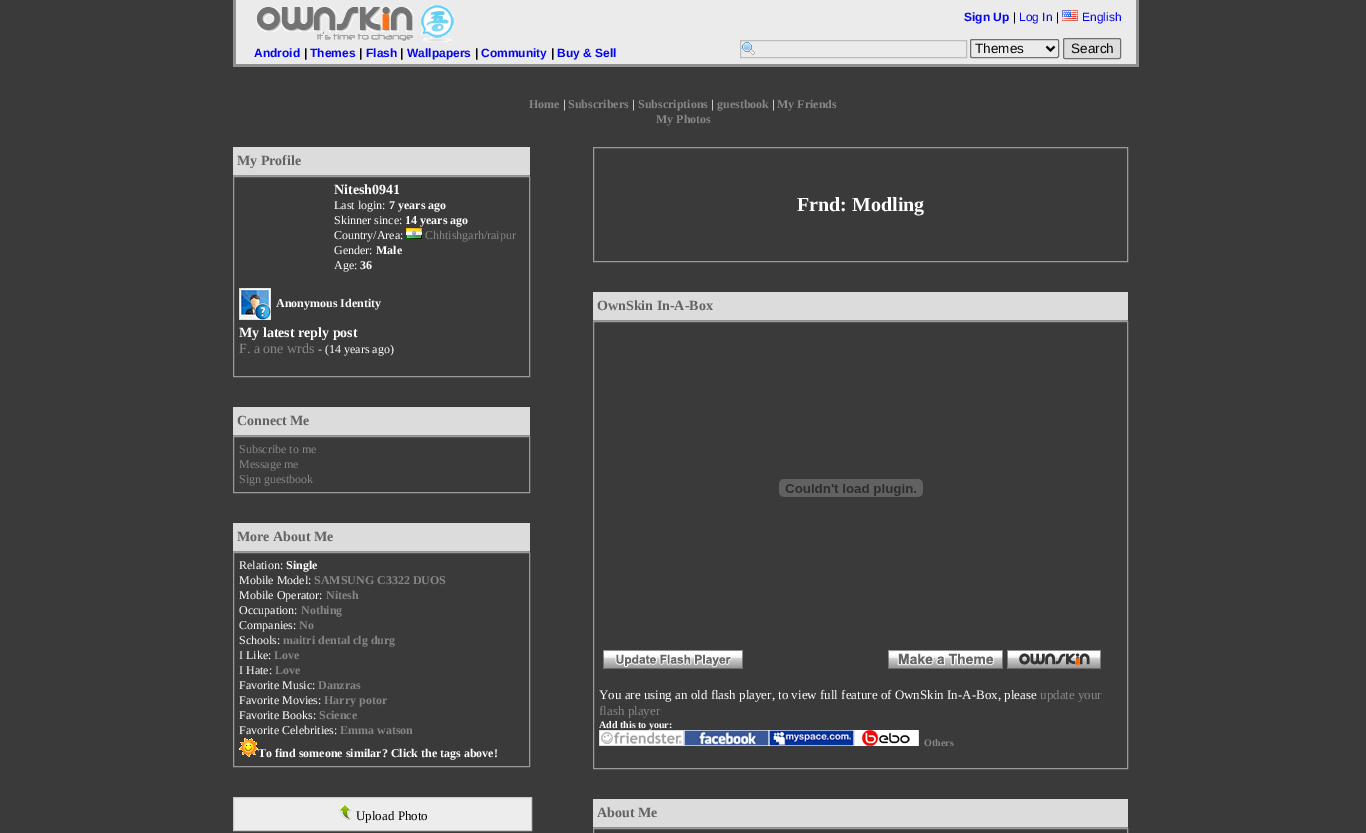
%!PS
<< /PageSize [1366 833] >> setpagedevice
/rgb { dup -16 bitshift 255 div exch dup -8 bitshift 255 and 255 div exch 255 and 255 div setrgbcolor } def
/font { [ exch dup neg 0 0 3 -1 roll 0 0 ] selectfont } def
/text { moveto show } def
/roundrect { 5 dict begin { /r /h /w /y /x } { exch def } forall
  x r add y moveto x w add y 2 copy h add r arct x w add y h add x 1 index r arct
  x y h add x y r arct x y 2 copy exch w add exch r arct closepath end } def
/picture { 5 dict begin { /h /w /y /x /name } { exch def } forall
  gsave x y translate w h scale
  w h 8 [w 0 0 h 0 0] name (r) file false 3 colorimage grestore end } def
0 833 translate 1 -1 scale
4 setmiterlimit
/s1 { /LiberationSans-Bold 12 font 16#0606EB rgb } def
/s2 { /LiberationSans-Bold 12 font 16#060606 rgb } def
/s3 { /LiberationSans-Regular 12 font 16#060606 rgb } def
/s4 { /LiberationSans-Regular 12 font 16#0606EB rgb } def
/s5 { /LiberationSans-Regular 13.5 font 16#060606 rgb } def
/s6 { /LiberationSerif-Bold 12 font 16#898588 rgb } def
/s7 { /LiberationSerif-Bold 12 font 16#FFFFFF rgb } def
/s8 { /LiberationSerif-Bold 14 font 16#626262 rgb } def
/s9 { /LiberationSerif-Bold 14 font 16#FFFFFF rgb } def
/s10 { /LiberationSerif-Regular 12 font 16#FFFFFF rgb } def
/s11 { /LiberationSerif-Regular 12 font 16#898588 rgb } def
/s12 { /LiberationSerif-Regular 14 font 16#898588 rgb } def
/s13 { /LiberationSerif-Regular 13 font 16#000000 rgb } def
/s14 { /LiberationSerif-Bold 20 font 16#FFFFFF rgb } def
/s15 { /LiberationSerif-Regular 13 font 16#FFFFFF rgb } def
/s16 { /LiberationSerif-Regular 13 font 16#898588 rgb } def
/s17 { /LiberationSerif-Bold 10 font 16#FFFFFF rgb } def
/s18 { /LiberationSerif-Bold 10 font 16#898588 rgb } def
16#3A3A3A rgb
0 0 1366 833 rectfill
16#EBEBEB rgb
236 0 900 64 rectfill
16#909090 rgb
1136 0 3 67 rectfill
233 64 906 3 rectfill
233 0 3 67 rectfill
(pic1.raw) 256 5 198 37 picture
s1
(Android) 254 57 text
s2
(|) 304 57 text
s1
(Themes) 310 57 text
s2
(|) 359 57 text
s1
(Flash) 366 57 text
s2
(|) 400 57 text
s1
(Wallpapers) 407 57 text
s2
(|) 475 57 text
s1
(Community) 481 57 text
s2
(|) 551 57 text
s1
(Buy & Sell) 557 57 text
(Sign Up) 964 21 text
s3
(|) 1013 21 text
s4
(Log In) 1019 21 text
s3
(|) 1056 21 text
(pic2.raw) 1062 10 16 11 picture
s4
(English) 1082 21 text
(pic3.raw) 742 42 13 13 picture
16#BDBDBD rgb
740.5 40.5 226 17 rectstroke
16#707070 rgb
970.5 39.5 88 18 1.5 roundrect stroke
16#060606 rgb
2 setlinewidth
1046.5 46.5 moveto 1050.5 50.5 lineto 1054.5 46.5 lineto stroke
s5
(Themes) 975 53 text
16#DDDDDD rgb
1063.5 38.5 57 20 1.5 roundrect gsave fill grestore
16#707070 rgb
1 setlinewidth
stroke
s5
(Search) 1071 53 text
s6
(Home) 529 108 text
s7
(|) 563 108 text
s6
(Subscribers) 568 108 text
s7
(|) 632 108 text
s6
(Subscriptions) 638 108 text
s7
(|) 711 108 text
s6
(guestbook) 717 108 text
s7
(|) 772 108 text
s6
(My Friends) 777 108 text
(My Photos) 656 123 text
16#DCDCDC rgb
233 147 297 28 rectfill
16#909090 rgb
233 175 297 1 rectfill
s8
(My Profile) 237 165 text
16#999999 rgb
233.5 176.5 296 200 rectstroke
s9
(Nitesh0941) 334 194 text
s10
(Last login:) 334 209 text
s7
(7 years ago) 389 209 text
s10
(Skinner since:) 334 224 text
s7
(14 years ago) 405 224 text
s10
(Country/Area:) 334 239 text
(pic4.raw) 406 228 16 11 picture
s11
(Chhtishgarh/raipur) 425 239 text
s10
(Gender:) 334 254 text
s7
(Male) 376 254 text
s10
(Age:) 334 269 text
s7
(36) 360 269 text
(pic5.raw) 239 288 32 32 picture
(Anonymous Identity) 276 307 text
s9
(My latest reply post) 239 337 text
s12
(F. a one wrds) 239 353 text
s10
(- \(14 years ago\)) 318 353 text
16#DCDCDC rgb
233 407 297 28 rectfill
16#909090 rgb
233 435 297 1 rectfill
s8
(Connect Me) 237 425 text
16#999999 rgb
233.5 436.5 296 56 rectstroke
s11
(Subscribe to me) 239 453 text
(Message me) 239 468 text
(Sign guestbook) 239 483 text
16#DCDCDC rgb
233 523 297 28 rectfill
16#909090 rgb
233 551 297 1 rectfill
s8
(More About Me) 237 541 text
16#999999 rgb
233.5 552.5 296 214 rectstroke
s10
(Relation:) 239 569 text
s7
(Single) 286 569 text
s10
(Mobile Model:) 239 584 text
s6
(SAMSUNG C3322 DUOS) 314 584 text
s10
(Mobile Operator:) 239 599 text
s6
(Nitesh) 326 599 text
s10
(Occupation:) 239 614 text
s6
(Nothing) 301 614 text
s10
(Companies:) 239 629 text
s6
(No) 299 629 text
s10
(Schools:) 239 644 text
s6
(maitri dental clg durg) 283 644 text
s10
(I Like:) 239 659 text
s6
(Love) 274 659 text
s10
(I Hate:) 239 674 text
s6
(Love) 275 674 text
s10
(Favorite Music:) 239 689 text
s6
(Danzras) 318 689 text
s10
(Favorite Movies:) 239 704 text
s6
(Harry potor) 324 704 text
s10
(Favorite Books:) 239 719 text
s6
(Science) 319 719 text
s10
(Favorite Celebrities:) 239 734 text
s6
(Emma watson) 340 734 text
(pic6.raw) 239 738 19 19 picture
s7
(To find someone similar? Click the tags above!) 258 757 text
16#EDEDED rgb
233.5 797.5 moveto 531.5 797.5 lineto 531.5 830.5 lineto 233.5 830.5 lineto closepath gsave fill grestore
16#CCCCCC rgb
stroke
(pic7.raw) 338 804 14 16 picture
s13
(Upload Photo) 356 820 text
16#999999 rgb
593.5 147.5 534 114 rectstroke
s14
(Frnd: Modling) 797 211 text
16#DCDCDC rgb
593 292 535 28 rectfill
16#909090 rgb
593 320 535 1 rectfill
s8
(OwnSkin In-A-Box) 597 310 text
16#999999 rgb
593.5 321.5 534 447 rectstroke
(pic8.raw) 779 479 144 18 picture
(pic9.raw) 603 650 140 19 picture
(pic10.raw) 888 650 115 19 picture
(pic11.raw) 1007 650 94 19 picture
s15
(You are using an old flash player, to view full feature of OwnSkin In-A-Box, please) 599 699 text
s16
(update your) 1040 699 text
(flash player) 599 715 text
s17
(Add this to your:) 599 728 text
(pic12.raw) 599 730 85 16 picture
(pic13.raw) 684 730 85 16 picture
(pic14.raw) 769 730 85 16 picture
(pic15.raw) 854 730 65 16 picture
s18
(Others) 924 746 text
16#DCDCDC rgb
593 799 535 28 rectfill
16#909090 rgb
593 827 535 1 rectfill
s8
(About Me) 597 817 text
16#999999 rgb
593.5 828.5 534 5 rectstroke
showpage
